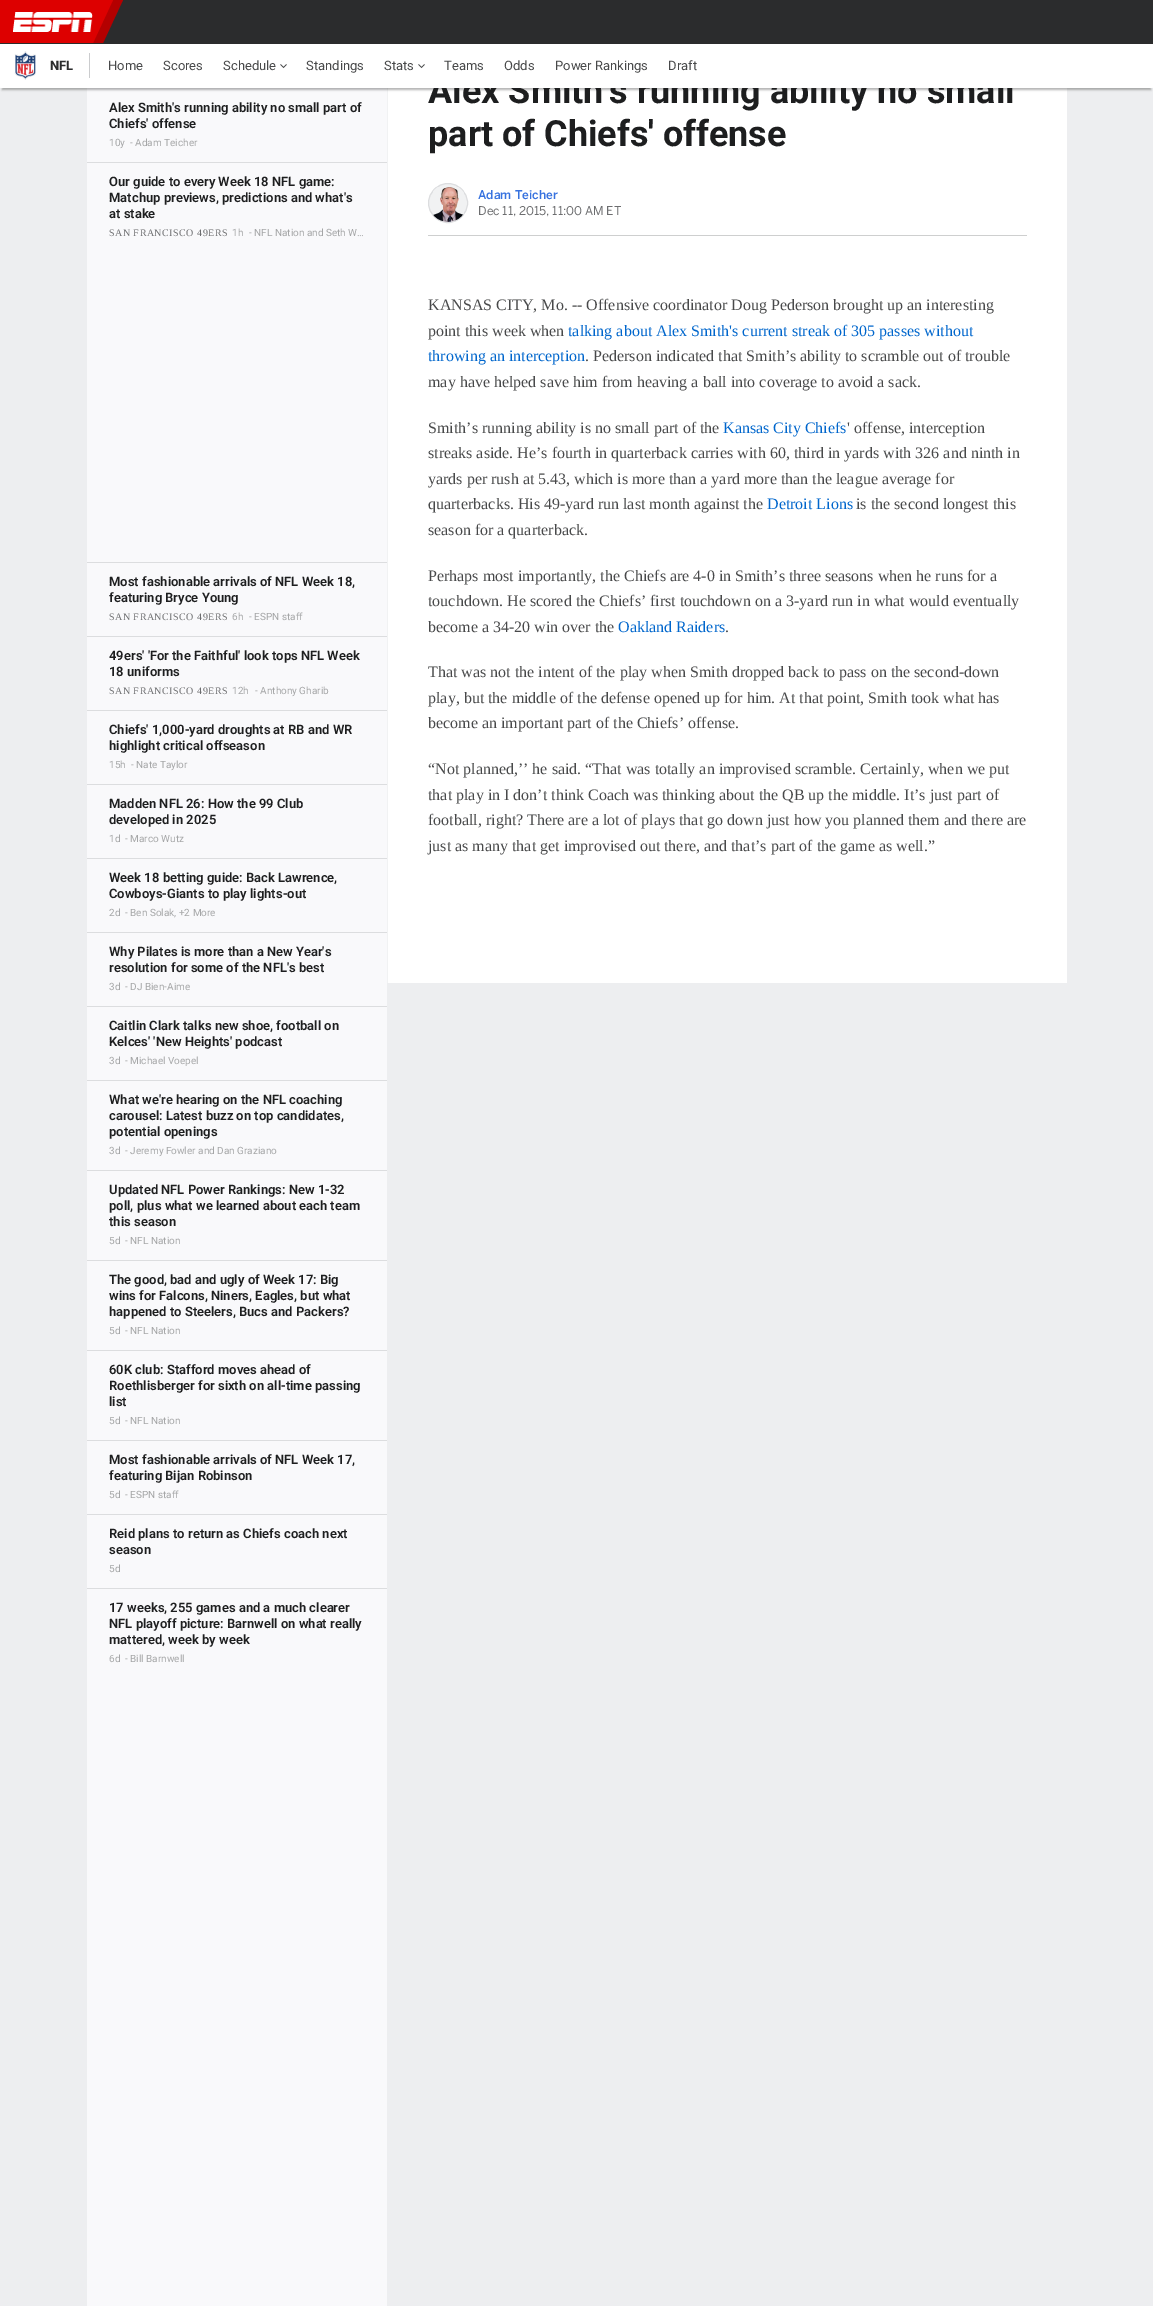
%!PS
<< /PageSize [1153 2306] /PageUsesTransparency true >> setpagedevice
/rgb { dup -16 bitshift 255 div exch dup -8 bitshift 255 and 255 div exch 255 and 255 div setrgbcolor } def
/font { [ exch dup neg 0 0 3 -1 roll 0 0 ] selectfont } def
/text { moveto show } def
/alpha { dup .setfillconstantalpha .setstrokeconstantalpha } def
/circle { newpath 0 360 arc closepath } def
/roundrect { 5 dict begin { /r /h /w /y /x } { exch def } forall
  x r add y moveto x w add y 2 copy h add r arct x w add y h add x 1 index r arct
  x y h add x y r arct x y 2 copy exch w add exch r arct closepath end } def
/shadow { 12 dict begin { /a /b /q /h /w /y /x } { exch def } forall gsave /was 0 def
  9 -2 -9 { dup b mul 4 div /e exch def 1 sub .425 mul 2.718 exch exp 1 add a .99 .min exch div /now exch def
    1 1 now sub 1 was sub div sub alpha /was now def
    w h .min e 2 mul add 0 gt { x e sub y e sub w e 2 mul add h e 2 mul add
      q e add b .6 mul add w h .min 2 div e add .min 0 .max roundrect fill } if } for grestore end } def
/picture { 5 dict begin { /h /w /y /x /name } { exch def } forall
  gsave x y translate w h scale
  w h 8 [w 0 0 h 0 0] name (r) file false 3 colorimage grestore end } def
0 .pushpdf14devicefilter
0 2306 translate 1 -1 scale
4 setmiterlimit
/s1 { /Roboto-Bold 36 font 16#1D1E1F rgb } def
/s2 { /Roboto-ExtraBold 13 font 16#2B2C2D rgb } def
/s3 { /Roboto-Regular 13 font 16#48494A rgb } def
/s4 { /Roboto-SemiBold 13 font 16#1D1E1F rgb } def
/s5 { /Roboto-Regular 10 font 16#A5A6A7 rgb } def
/s6 { /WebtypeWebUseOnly-Medium 12 font 16#3772DF rgb } def
/s7 { /WebtypeWebUseOnly-Regular 12 font 16#6C6D6F rgb } def
/s8 { /LiberationSerif-Regular 16 font 16#48494A rgb } def
/s9 { /LiberationSerif-Regular 16 font 16#0066CC rgb } def
16#EDEEF0 rgb
0 0 1153 2306 rectfill
16#2B2C2D rgb
0 0 1153 44 rectfill
16#B40000 rgb
0 0 moveto 123 0 lineto 103 43 lineto -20 43 lineto closepath fill
16#DD0000 rgb
-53 0 moveto 113 0 lineto 93 43 lineto -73 43 lineto closepath fill
(pic1.raw) 13 12 80 20 picture
16#F9F9FB rgb
87 88 300 2218 rectfill
16#F1F2F3 rgb
387 88 1 895 rectfill
16#FFFFFF rgb
388 88 679 895 rectfill
16#000000 rgb
2 50 1149 40 0 1 0.3 shadow
s1
(Alex Smith's running ability no small) 428 103 text
16#FFFFFF rgb
0 44 1153 44 1 roundrect fill
(pic2.raw) 14 51 22 29 picture
s2
(NFL) 50 70 text
16#CBCCCE rgb
89 53 1 25 rectfill
s3
(Home) 108 70 text
(Scores) 163 70 text
(Schedule) 223 70 text
(pic3.raw) 280 64 7 5 picture
(Standings) 306 70 text
(Stats) 384 70 text
(pic3.raw) 418 64 7 5 picture
(Teams) 444 70 text
(Odds) 504 70 text
(Power Rankings) 555 70 text
(Draft) 668 70 text
s4
(Alex Smith's running ability no small part of) 109 112 text
(Chiefs' offense) 109 128 text
s5
(10y) 109 146 text
(- Adam Teicher) 130 146 text
16#DCDDDF rgb
87 162 300 1 rectfill
s4
(Our guide to every Week 18 NFL game:) 109 186 text
(Matchup previews, predictions and what's) 109 202 text
(at stake) 109 218 text
/LiberationSerif-Regular 10 font
16#6C6D6F rgb
109 236 moveto 0.5 0 (SAN FRANCISCO 49ERS) ashow
s5
(1h) 232 236 text
(- NFL Nation and Seth W…) 249 236 text
16#DCDDDF rgb
87 562 300 1 rectfill
s4
(Most fashionable arrivals of NFL Week 18,) 109 586 text
(featuring Bryce Young) 109 602 text
/LiberationSerif-Regular 10 font
16#6C6D6F rgb
109 620 moveto 0.5 0 (SAN FRANCISCO 49ERS) ashow
s5
(6h) 232 620 text
(- ESPN staff) 249 620 text
16#DCDDDF rgb
87 636 300 1 rectfill
s4
(49ers' 'For the Faithful' look tops NFL Week) 109 660 text
(18 uniforms) 109 676 text
/LiberationSerif-Regular 10 font
16#6C6D6F rgb
109 694 moveto 0.5 0 (SAN FRANCISCO 49ERS) ashow
s5
(12h) 232 694 text
(- Anthony Gharib) 255 694 text
16#DCDDDF rgb
87 710 300 1 rectfill
s4
(Chiefs' 1,000-yard droughts at RB and WR) 109 734 text
(highlight critical offseason) 109 750 text
s5
(15h) 109 768 text
(- Nate Taylor) 131 768 text
16#DCDDDF rgb
87 784 300 1 rectfill
s4
(Madden NFL 26: How the 99 Club) 109 808 text
(developed in 2025) 109 824 text
s5
(1d) 109 842 text
(- Marco Wutz) 125 842 text
16#DCDDDF rgb
87 858 300 1 rectfill
s4
(Week 18 betting guide: Back Lawrence,) 109 882 text
(Cowboys-Giants to play lights-out) 109 898 text
s5
(2d) 109 916 text
(- Ben Solak, +2 More) 125 916 text
16#DCDDDF rgb
87 932 300 1 rectfill
s4
(Why Pilates is more than a New Year's) 109 956 text
(resolution for some of the NFL's best) 109 972 text
s5
(3d) 109 990 text
(- DJ Bien-Aime) 125 990 text
16#DCDDDF rgb
87 1006 300 1 rectfill
s4
(Caitlin Clark talks new shoe, football on) 109 1030 text
(Kelces' 'New Heights' podcast) 109 1046 text
s5
(3d) 109 1064 text
(- Michael Voepel) 125 1064 text
16#DCDDDF rgb
87 1080 300 1 rectfill
s4
(What we're hearing on the NFL coaching) 109 1104 text
(carousel: Latest buzz on top candidates,) 109 1120 text
(potential openings) 109 1136 text
s5
(3d) 109 1154 text
(- Jeremy Fowler and Dan Graziano) 125 1154 text
16#DCDDDF rgb
87 1170 300 1 rectfill
s4
(Updated NFL Power Rankings: New 1-32) 109 1194 text
(poll, plus what we learned about each team) 109 1210 text
(this season) 109 1226 text
s5
(5d) 109 1244 text
(- NFL Nation) 125 1244 text
16#DCDDDF rgb
87 1260 300 1 rectfill
s4
(The good, bad and ugly of Week 17: Big) 109 1284 text
(wins for Falcons, Niners, Eagles, but what) 109 1300 text
(happened to Steelers, Bucs and Packers?) 109 1316 text
s5
(5d) 109 1334 text
(- NFL Nation) 125 1334 text
16#DCDDDF rgb
87 1350 300 1 rectfill
s4
(60K club: Stafford moves ahead of) 109 1374 text
(Roethlisberger for sixth on all-time passing) 109 1390 text
(list) 109 1406 text
s5
(5d) 109 1424 text
(- NFL Nation) 125 1424 text
16#DCDDDF rgb
87 1440 300 1 rectfill
s4
(Most fashionable arrivals of NFL Week 17,) 109 1464 text
(featuring Bijan Robinson) 109 1480 text
s5
(5d) 109 1498 text
(- ESPN staff) 125 1498 text
16#DCDDDF rgb
87 1514 300 1 rectfill
s4
(Reid plans to return as Chiefs coach next) 109 1538 text
(season) 109 1554 text
s5
(5d) 109 1572 text
16#DCDDDF rgb
87 1588 300 1 rectfill
s4
(17 weeks, 255 games and a much clearer) 109 1612 text
(NFL playoff picture: Barnwell on what really) 109 1628 text
(mattered, week by week) 109 1644 text
s5
(6d) 109 1662 text
(- Bill Barnwell) 125 1662 text
s1
(part of Chiefs' offense) 428 146 text
16#CECFCF rgb
428 235 599 1 rectfill
16#F1F2F3 rgb
448 203 19.5 circle gsave fill grestore
16#DCDDDF rgb
stroke
(pic4.raw) 433 187 31 35 picture
s6
(Adam Teicher) 478 199 text
s7
(Dec 11, 2015, 11:00 AM ET) 478 215 text
s8
(KANSAS CITY, Mo. -- Offensive coordinator Doug Pederson brought up an interesting) 428 310 text
(point this week when) 428 336 text
s9
(talking about Alex Smith's current streak of 305 passes without) 568 336 text
(throwing an interception) 428 361 text
s8
(. Pederson indicated that Smith’s ability to scramble out of trouble) 585 361 text
(may have helped save him from heaving a ball into coverage to avoid a sack.) 428 387 text
(Smith’s running ability is no small part of the) 428 433 text
s9
(Kansas City Chiefs) 723 433 text
s8
(' offense, interception) 847 433 text
(streaks aside. He’s fourth in quarterback carries with 60, third in yards with 326 and ninth in) 428 458 text
(yards per rush at 5.43, which is more than a yard more than the league average for) 428 484 text
(quarterbacks. His 49-yard run last month against the) 428 509 text
s9
(Detroit Lions) 767 509 text
s8
(is the second longest this) 856 509 text
(season for a quarterback.) 428 535 text
(Perhaps most importantly, the Chiefs are 4-0 in Smith’s three seasons when he runs for a) 428 581 text
(touchdown. He scored the Chiefs’ first touchdown on a 3-yard run in what would eventually) 428 606 text
(become a 34-20 win over the) 428 632 text
s9
(Oakland Raiders) 618 632 text
s8
(.) 725 632 text
(That was not the intent of the play when Smith dropped back to pass on the second-down) 428 677 text
(play, but the middle of the defense opened up for him. At that point, Smith took what has) 428 703 text
(become an important part of the Chiefs’ offense.) 428 728 text
(“Not planned,’’ he said. “That was totally an improvised scramble. Certainly, when we put) 428 774 text
(that play in I don’t think Coach was thinking about the QB up the middle. It’s just part of) 428 800 text
(football, right? There are a lot of plays that go down just how you planned them and there are) 428 825 text
(just as many that get improvised out there, and that’s part of the game as well.”) 428 851 text
.poppdf14devicefilter showpage
